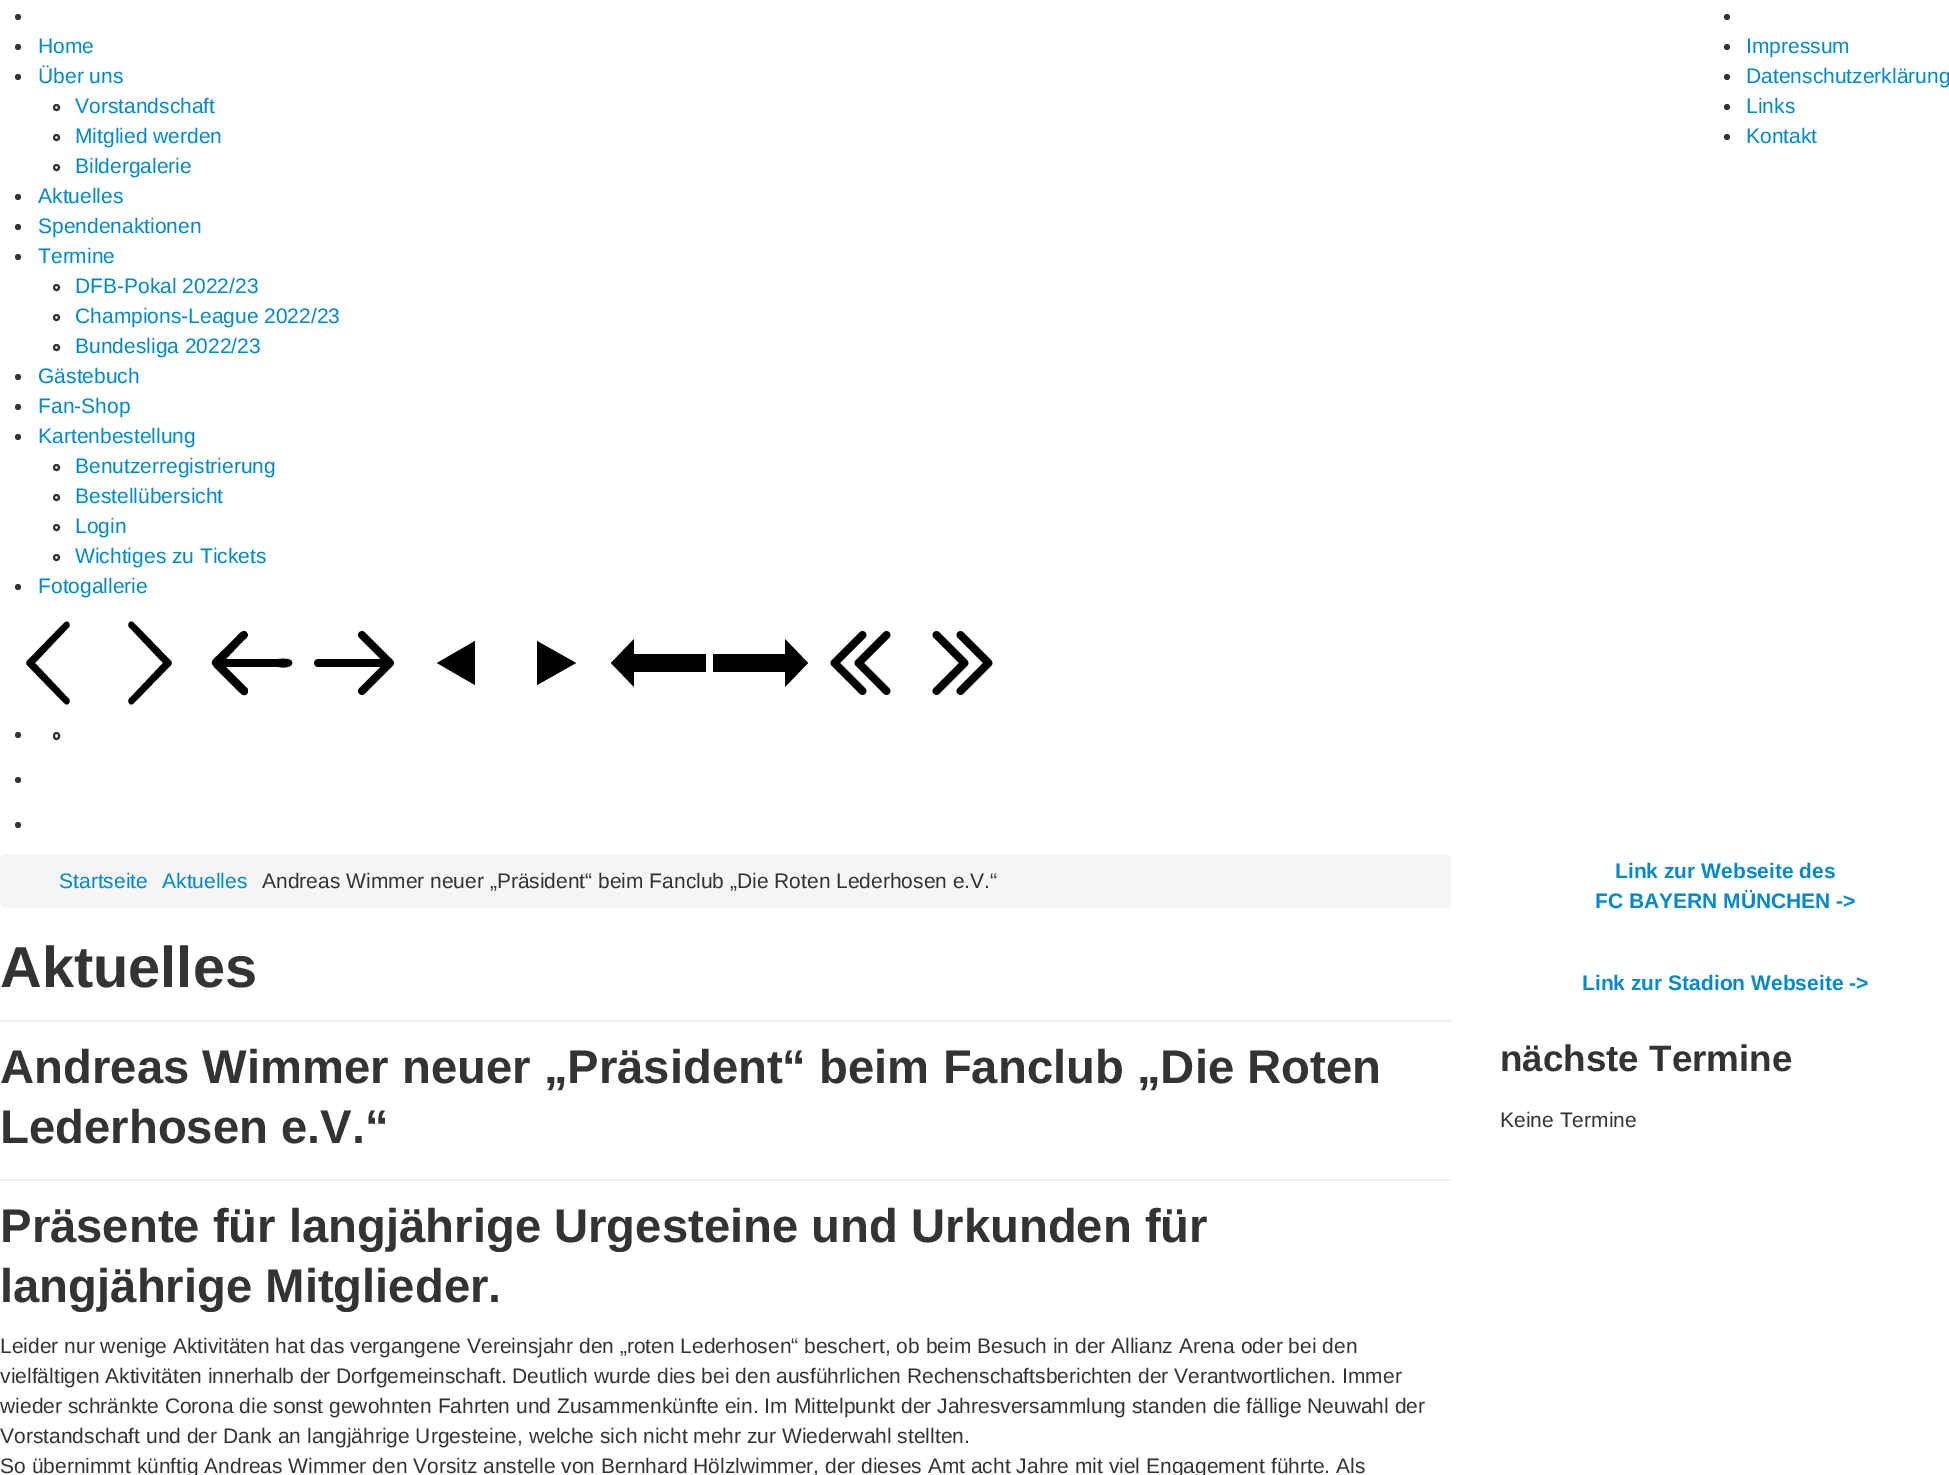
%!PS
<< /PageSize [1949 1475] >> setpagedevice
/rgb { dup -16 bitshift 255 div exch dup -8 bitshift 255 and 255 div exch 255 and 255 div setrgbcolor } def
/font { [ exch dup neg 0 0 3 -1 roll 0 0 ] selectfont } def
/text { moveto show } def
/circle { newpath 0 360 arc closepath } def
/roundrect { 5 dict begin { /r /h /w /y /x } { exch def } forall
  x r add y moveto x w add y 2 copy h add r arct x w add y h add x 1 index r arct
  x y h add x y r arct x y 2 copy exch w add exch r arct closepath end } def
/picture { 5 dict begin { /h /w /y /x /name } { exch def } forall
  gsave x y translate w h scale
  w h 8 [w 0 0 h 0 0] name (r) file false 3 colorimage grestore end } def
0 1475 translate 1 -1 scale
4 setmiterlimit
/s1 { /LiberationSans-Regular 21 font 16#0088CC rgb } def
/s2 { /LiberationSans-Regular 21 font 16#333333 rgb } def
/s3 { /LiberationSans-Bold 57.75 font 16#333333 rgb } def
/s4 { /LiberationSans-Bold 47.25 font 16#333333 rgb } def
/s5 { /LiberationSans-Bold 21 font 16#0088CC rgb } def
/s6 { /LiberationSans-Bold 36.75 font 16#333333 rgb } def
16#FFFFFF rgb
0 0 1949 1475 rectfill
16#333333 rgb
18 17 3 circle fill
18 47 3 circle fill
s1
(Home) 38 53 text
16#333333 rgb
18 77 3 circle fill
s1
(Über uns) 38 83 text
16#333333 rgb
2 setlinewidth
56.5 107.5 2.5 circle stroke
s1
(Vorstandschaft) 75 113 text
16#333333 rgb
56.5 137.5 2.5 circle stroke
s1
(Mitglied werden) 75 143 text
16#333333 rgb
56.5 167.5 2.5 circle stroke
s1
(Bildergalerie) 75 173 text
16#333333 rgb
18 197 3 circle fill
s1
(Aktuelles) 38 203 text
16#333333 rgb
18 227 3 circle fill
s1
(Spendenaktionen) 38 233 text
16#333333 rgb
18 257 3 circle fill
s1
(Termine) 38 263 text
16#333333 rgb
56.5 287.5 2.5 circle stroke
s1
(DFB-Pokal 2022/23) 75 293 text
16#333333 rgb
56.5 317.5 2.5 circle stroke
s1
(Champions-League 2022/23) 75 323 text
16#333333 rgb
56.5 347.5 2.5 circle stroke
s1
(Bundesliga 2022/23) 75 353 text
16#333333 rgb
18 377 3 circle fill
s1
(Gästebuch) 38 383 text
16#333333 rgb
18 407 3 circle fill
s1
(Fan-Shop) 38 413 text
16#333333 rgb
18 437 3 circle fill
s1
(Kartenbestellung) 38 443 text
16#333333 rgb
56.5 467.5 2.5 circle stroke
s1
(Benutzerregistrierung) 75 473 text
16#333333 rgb
56.5 497.5 2.5 circle stroke
s1
(Bestellübersicht) 75 503 text
16#333333 rgb
56.5 527.5 2.5 circle stroke
s1
(Login) 75 533 text
16#333333 rgb
56.5 557.5 2.5 circle stroke
s1
(Wichtiges zu Tickets) 75 563 text
16#333333 rgb
18 587 3 circle fill
s1
(Fotogallerie) 38 593 text
16#333333 rgb
1727 17 3 circle fill
1727 47 3 circle fill
s1
(Impressum) 1746 53 text
16#333333 rgb
1727 77 3 circle fill
s1
(Datenschutzerklärung) 1746 83 text
16#333333 rgb
1727 107 3 circle fill
s1
(Links) 1746 113 text
16#333333 rgb
1727 137 3 circle fill
s1
(Kontakt) 1746 143 text
16#000000 rgb
69 699 moveto 70 700 70 702 69 703 curveto 68 705 66 705 64 703 curveto 27 665 lineto 26 664 26 662 27 661 curveto 64 623 lineto 66 621 68 621 69 623 curveto 70 624 70 626 69 627 curveto 35 663 lineto closepath fill
129 699 moveto 128 700 128 702 129 703 curveto 130 705 132 705 134 703 curveto 171 665 lineto 172 664 172 662 171 661 curveto 134 623 lineto 132 621 130 621 129 623 curveto 128 624 128 626 129 627 curveto 163 663 lineto closepath fill
244 631 moveto 245 631 247 632 247 633 curveto 250 636 245 639 243 641 curveto 226 659 lineto 278 659 lineto 279 659 294 657 292 664 curveto 290 669 279 667 278 667 curveto 226 667 lineto 248 689 lineto 248 691 248 693 247 694 curveto 243 698 239 691 236 689 curveto 218 671 lineto 208 661 211 662 222 651 curveto 236 637 lineto 238 635 241 631 244 631 curveto closepath fill
(pic1.raw) 314 631 80 64 picture
475 641 moveto 475 685 lineto 437 663 lineto closepath fill
537 641 moveto 537 685 lineto 576 663 lineto closepath fill
634 687 moveto 634 672 lineto 706 672 lineto 706 654 lineto 634 654 lineto 634 639 lineto 611 663 lineto closepath fill
785 687 moveto 785 672 lineto 713 672 lineto 713 654 lineto 785 654 lineto 785 639 lineto 808 663 lineto closepath fill
(pic2.raw) 830 631 61 64 picture
(pic3.raw) 932 631 61 64 picture
16#333333 rgb
18 735 3 circle fill
54 733 5 6 2.5 roundrect stroke
18 780 3 circle fill
18 825 3 circle fill
16#F5F5F5 rgb
0 854 1451 54 6 roundrect fill
s1
(Startseite) 59 888 text
(Aktuelles) 162 888 text
s2
(Andreas Wimmer neuer „Präsident“ beim Fanclub „Die Roten Lederhosen e.V.“) 262 888 text
16#EEEEEE rgb
0 1020 1451 2 rectfill
s3
(Aktuelles) 0 987 text
16#EEEEEE rgb
0 1179 1451 2 rectfill
s4
(Andreas Wimmer neuer „Präsident“ beim Fanclub „Die Roten) 0 1083 text
(Lederhosen e.V.“) 0 1143 text
(Präsente für langjährige Urgesteine und Urkunden für) 0 1242 text
(langjährige Mitglieder.) 0 1302 text
s2
(Leider nur wenige Aktivitäten hat das vergangene Vereinsjahr den „roten Lederhosen“ beschert, ob beim Besuch in der Allianz Arena oder bei den) 0 1353 text
(vielfältigen Aktivitäten innerhalb der Dorfgemeinschaft. Deutlich wurde dies bei den ausführlichen Rechenschaftsberichten der Verantwortlichen. Immer) 0 1383 text
(wieder schränkte Corona die sonst gewohnten Fahrten und Zusammenkünfte ein. Im Mittelpunkt der Jahresversammlung standen die fällige Neuwahl der) 0 1413 text
(Vorstandschaft und der Dank an langjährige Urgesteine, welche sich nicht mehr zur Wiederwahl stellten.) 0 1443 text
(So übernimmt künftig Andreas Wimmer den Vorsitz anstelle von Bernhard Hölzlwimmer, der dieses Amt acht Jahre mit viel Engagement führte. Als) 0 1473 text
s5
(Link zur Webseite des) 1615 878 text
(FC BAYERN MÜNCHEN ->) 1595 908 text
(Link zur Stadion Webseite ->) 1582 990 text
s6
(nächste Termine) 1500 1071 text
s2
(Keine Termine) 1500 1127 text
showpage
